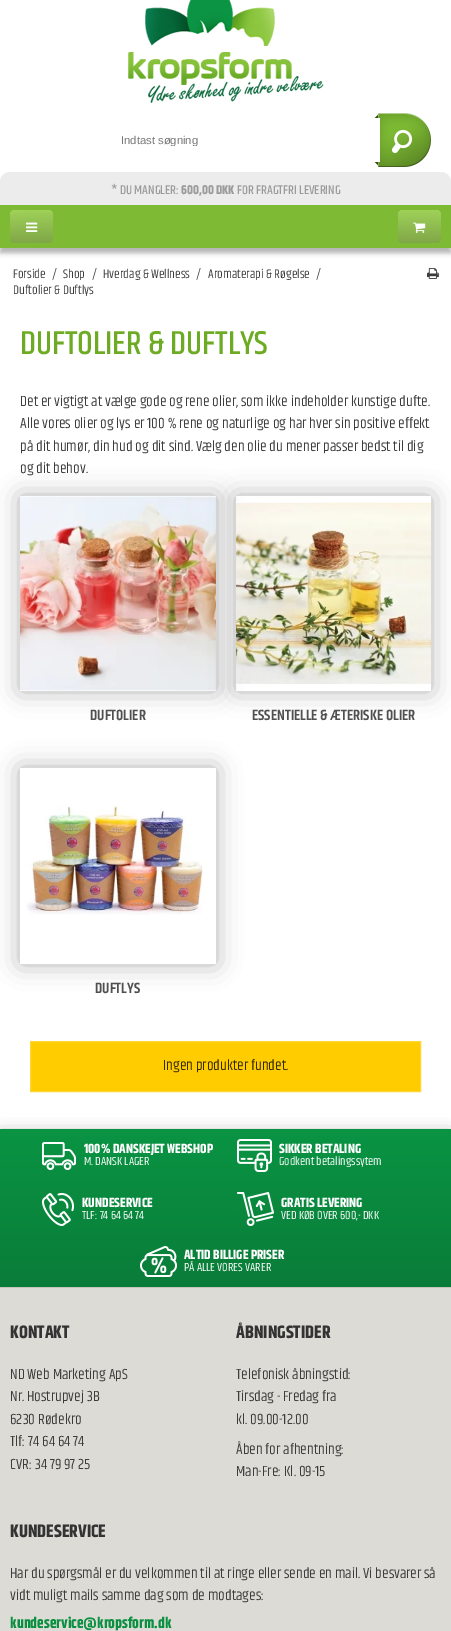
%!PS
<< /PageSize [451 1631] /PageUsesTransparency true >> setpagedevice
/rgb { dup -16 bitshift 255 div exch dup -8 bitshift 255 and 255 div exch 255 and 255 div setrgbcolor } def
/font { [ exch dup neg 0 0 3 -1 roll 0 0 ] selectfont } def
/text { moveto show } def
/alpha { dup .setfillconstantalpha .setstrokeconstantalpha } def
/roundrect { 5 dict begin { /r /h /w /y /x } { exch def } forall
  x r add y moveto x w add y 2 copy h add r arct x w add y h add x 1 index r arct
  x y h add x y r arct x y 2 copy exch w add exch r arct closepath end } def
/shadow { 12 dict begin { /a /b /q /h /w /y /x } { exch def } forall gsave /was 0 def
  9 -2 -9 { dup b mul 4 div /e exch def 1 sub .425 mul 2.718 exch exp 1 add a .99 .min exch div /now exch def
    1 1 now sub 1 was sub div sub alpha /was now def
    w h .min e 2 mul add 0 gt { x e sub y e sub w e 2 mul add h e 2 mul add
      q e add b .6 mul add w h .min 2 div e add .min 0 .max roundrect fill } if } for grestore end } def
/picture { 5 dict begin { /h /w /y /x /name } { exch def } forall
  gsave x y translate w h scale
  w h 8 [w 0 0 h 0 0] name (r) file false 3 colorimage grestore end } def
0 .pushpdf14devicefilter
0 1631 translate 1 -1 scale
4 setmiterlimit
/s1 { /LiberationSans-Regular 11.25 font 16#757575 rgb } def
/s2 { /Khand-Medium 12.75 font 16#9B9B9B rgb } def
/s3 { /Khand-Bold 12.75 font 16#9B9B9B rgb } def
/s4 { /Khand-Regular 12.75 font 16#3C3C3C rgb } def
/s5 { /Khand-Medium 33.75 font 16#6EAB24 rgb } def
/s6 { /Khand-Regular 15 font 16#3C3C3C rgb } def
/s7 { /Khand-SemiBold 15 font 16#505050 rgb } def
/s8 { /Khand-Regular 15 font 16#332900 rgb } def
/s9 { /Khand-Bold 13.25 font 16#FFFFFF rgb } def
/s10 { /Khand-Regular 12 font 16#FFFFFF rgb } def
/s11 { /Khand-Bold 18 font 16#333333 rgb } def
/s12 { /Khand-Bold 15 font 16#0B9042 rgb } def
16#FFFFFF rgb
0 0 451 1631 rectfill
(pic1.raw) 128 0 196 103 picture
(pic2.raw) 374 113 57 54 picture
131 118 moveto 380 118 lineto 380 162 lineto 131 162 lineto 120 162 111 153 111 142 curveto 111 138 lineto 111 127 120 118 131 118 curveto closepath fill
gsave
121 134 249 12 rectclip
s1
(Indtast søgning) 121 144 text
grestore
16#000000 rgb
0 210 451 43 0 2.5 0.3 shadow
16#ECECEC rgb
10 172 moveto 441 172 lineto 446.5 172 451 176.5 451 182 curveto 451 205 lineto 0 205 lineto 0 182 lineto 0 176.5 4.5 172 10 172 curveto closepath fill
s2
(* DU MANGLER:) 111 194 text
s3
(600,00 DKK) 181 194 text
s2
(FOR FRAGTFRI LEVERING) 237 194 text
16#7EBA34 rgb
0 205 451 43 rectfill
gsave 10 210 43 33 5 roundrect clip newpath
<< /ShadingType 2 /ColorSpace /DeviceRGB /Coords [31 210 32 243] /Extend [true true] /Function << /FunctionType 2 /Domain [0 1] /C0 [0.624 0.82 0.349] /C1 [0.502 0.655 0.278] /N 1 >> >> shfill grestore
(pic3.raw) 26 222 12 10 picture
gsave 398 210 43 33 5 roundrect clip newpath
<< /ShadingType 2 /ColorSpace /DeviceRGB /Coords [420 210 420 243] /Extend [true true] /Function << /FunctionType 2 /Domain [0 1] /C0 [0.624 0.82 0.349] /C1 [0.502 0.655 0.278] /N 1 >> >> shfill grestore
(pic4.raw) 413 222 13 11 picture
s4
(Forside) 13 278 text
(/) 52 278 text
(Shop) 63 278 text
(/) 92 278 text
(Hverdag & Wellness) 103 278 text
(/) 196 278 text
(Aromaterapi & Røgelse) 208 278 text
(/) 316 278 text
(Duftolier & Duftlys) 13 294 text
(pic5.raw) 427 268 12 11 picture
s5
(DUFTOLIER & DUFTLYS) 20 354 text
s6
(Det er vigtigt at vælge gode og rene olier, som ikke indeholder kunstige dufte.) 20 406 text
(Alle vores olier og lys er 100 % rene og naturlige og har hver sin positive effekt) 20 428 text
(på dit humør, din hud og dit sind. Vælg den olie du mener passer bedst til dig) 20 451 text
(og dit behov.) 20 473 text
16#000000 rgb
20 496 196 195 0 12.5 0.3 shadow
(pic6.raw) 20 496 196 195 picture
s7
(DUFTOLIER) 90 720 text
gsave
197 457 moveto 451 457 lineto 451 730 lineto 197 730 lineto closepath 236 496 moveto 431 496 lineto 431 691 lineto 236 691 lineto closepath eoclip newpath
16#000000 rgb
236 496 195 195 0 12.5 0.3 shadow
grestore
(pic7.raw) 236 502 195 183 picture
(ESSENTIELLE & ÆTERISKE OLIER) 252 720 text
gsave
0 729 moveto 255 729 lineto 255 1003 lineto 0 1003 lineto closepath 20 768 moveto 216 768 lineto 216 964 lineto 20 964 lineto closepath eoclip newpath
16#000000 rgb
20 768 196 196 0 12.5 0.3 shadow
grestore
(pic8.raw) 26 805 177 110 picture
(DUFTLYS) 95 993 text
16#FFCC00 rgb
30.5 1041.5 moveto 420.5 1041.5 lineto 420.5 1091.5 lineto 30.5 1091.5 lineto closepath gsave fill grestore
16#FFD633 rgb
stroke
s8
(Ingen produkter fundet.) 163 1070 text
16#000000 rgb
0 1134 451 158 0 7.5 0.4 shadow
gsave 0 1129 moveto 451 1129 lineto 451 1287 lineto 0 1287 lineto closepath clip newpath
<< /ShadingType 2 /ColorSpace /DeviceRGB /Coords [226 1129 226 1287] /Extend [true true] /Function << /FunctionType 2 /Domain [0 1] /C0 [0.035 0.58 0.263] /C1 [0.035 0.486 0.224] /N 1 >> >> shfill grestore
(pic9.raw) 42 1142 34 28 picture
s9
(100% DANSKEJET WEBSHOP) 84 1153 text
s10
(M. DANSK LAGER) 84 1165 text
(pic10.raw) 237 1139 35 33 picture
s9
(SIKKER BETALING) 279 1153 text
s10
(Godkent betalingssytem) 279 1165 text
(pic11.raw) 42 1193 32 33 picture
s9
(KUNDESERVICE) 82 1207 text
s10
(TLF: 74 64 64 74) 82 1219 text
(pic12.raw) 237 1192 37 34 picture
s9
(GRATIS LEVERING) 281 1207 text
s10
(VED KØB OVER 600,- DKK) 281 1219 text
(pic13.raw) 140 1246 37 31 picture
s9
(ALTID BILLIGE PRISER) 184 1259 text
s10
(PÅ ALLE VORES VARER) 184 1271 text
16#DDDBD5 rgb
0 1288 451 343 rectfill
16#C6C3B9 rgb
0 1287 451 1 rectfill
s11
(KONTAKT) 10 1338 text
s6
(ND Web Marketing ApS) 10 1379 text
(Nr. Hostrupvej 3B) 10 1401 text
(6230 Rødekro) 10 1424 text
(Tlf: 74 64 64 74) 10 1446 text
(CVR: 34 79 97 25) 10 1469 text
s11
(ÅBNINGSTIDER) 236 1338 text
s6
(Telefonisk åbningstid:) 236 1379 text
(Tirsdag - Fredag fra) 236 1401 text
(kl. 09.00-12.00) 236 1424 text
(Åben for afhentning:) 236 1454 text
(Man-Fre: Kl. 09-15) 236 1476 text
s11
(KUNDESERVICE) 10 1537 text
s6
(Har du spørgsmål er du velkommen til at ringe eller sende en mail. Vi besvarer så) 10 1578 text
(vidt muligt mails samme dag som de modtages:) 10 1600 text
s12
(kundeservice@kropsform.dk) 10 1628 text
.poppdf14devicefilter showpage
